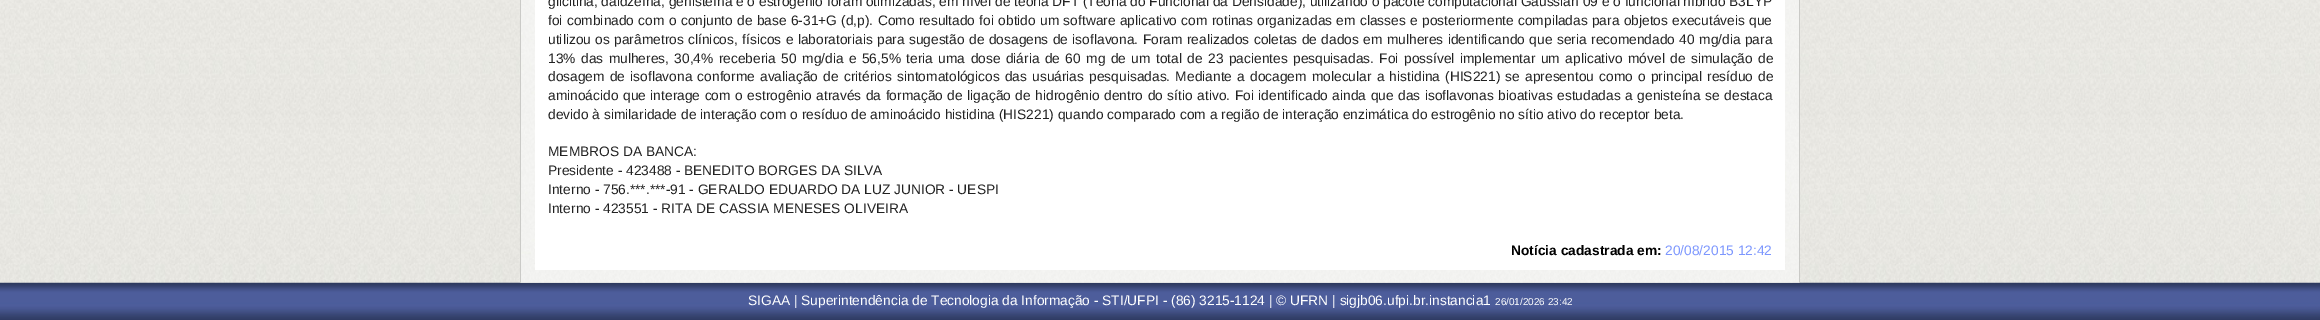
%!PS
<< /PageSize [2320 320] >> setpagedevice
/rgb { dup -16 bitshift 255 div exch dup -8 bitshift 255 and 255 div exch 255 and 255 div setrgbcolor } def
/font { [ exch dup neg 0 0 3 -1 roll 0 0 ] selectfont } def
/text { moveto show } def
/picture { 5 dict begin { /h /w /y /x /name } { exch def } forall
  gsave x y translate w h scale
  w h 8 [w 0 0 h 0 0] name (r) file false 3 colorimage grestore end } def
0 320 translate 1 -1 scale
4 setmiterlimit
/s1 { /LiberationSans-Regular 13.75 font 16#222222 rgb } def
/s2 { /LiberationSans-Bold 13.75 font 16#000000 rgb } def
/s3 { /LiberationSans-Regular 13.75 font 16#7D97FE rgb } def
/s4 { /LiberationSans-Regular 13.75 font 16#FFFFFF rgb } def
/s5 { /LiberationSans-Regular 10 font 16#FFFFFF rgb } def
16#FFFFFF rgb
0 0 2320 320 rectfill
(pic1.raw) 0 0 2320 283 picture
(pic2.raw) 0 282 2320 38 picture
(pic3.raw) 521 0 1278 283 picture
16#CACAC7 rgb
1799 0 1 283 rectfill
520 0 1 283 rectfill
16#FFFFFF rgb
535 0 1250 270 rectfill
s1
(glicitina, daidzeína, genisteína e o estrogênio foram otimizadas, em nível de teoria DFT \(Teoria do Funcional da Densidade\), utilizando o pacote computacional Gaussian 09 e o funcional híbrido B3LYP) 548 6 text
548 25 moveto 0.5 0 32 (foi combinado com o conjunto de base 6-31+G \(d,p\). Como resultado foi obtido um software aplicativo com rotinas organizadas em classes e posteriormente compiladas para objetos executáveis que) widthshow
548 44 moveto 0.6 0 32 (utilizou os parâmetros clínicos, físicos e laboratoriais para sugestão de dosagens de isoflavona. Foram realizados coletas de dados em mulheres identificando que seria recomendado 40 mg/dia para) widthshow
548 63 moveto 1.6 0 32 (13% das mulheres, 30,4% receberia 50 mg/dia e 56,5% teria uma dose diária de 60 mg de um total de 23 pacientes pesquisadas. Foi possível implementar um aplicativo móvel de simulação de) widthshow
548 81 moveto 1.4 0 32 (dosagem de isoflavona conforme avaliação de critérios sintomatológicos das usuárias pesquisadas. Mediante a docagem molecular a histidina \(HIS221\) se apresentou como o principal resíduo de) widthshow
548 100 moveto 0.75 0 32 (aminoácido que interage com o estrogênio através da formação de ligação de hidrogênio dentro do sítio ativo. Foi identificado ainda que das isoflavonas bioativas estudadas a genisteína se destaca) widthshow
(devido à similaridade de interação com o resíduo de aminoácido histidina \(HIS221\) quando comparado com a região de interação enzimática do estrogênio no sítio ativo do receptor beta.) 548 119 text
(MEMBROS DA BANCA:) 548 156 text
(Presidente - 423488 - BENEDITO BORGES DA SILVA) 548 175 text
(Interno - 756.***.***-91 - GERALDO EDUARDO DA LUZ JUNIOR - UESPI) 548 194 text
(Interno - 423551 - RITA DE CASSIA MENESES OLIVEIRA) 548 213 text
s2
(Notícia cadastrada em:) 1511 255 text
s3
(20/08/2015 12:42) 1665 255 text
s4
(SIGAA | Superintendência de Tecnologia da Informação - STI/UFPI - \(86\) 3215-1124 | © UFRN | sigjb06.ufpi.br.instancia1) 748 305 text
s5
(26/01/2026 23:42) 1495 305 text
showpage
